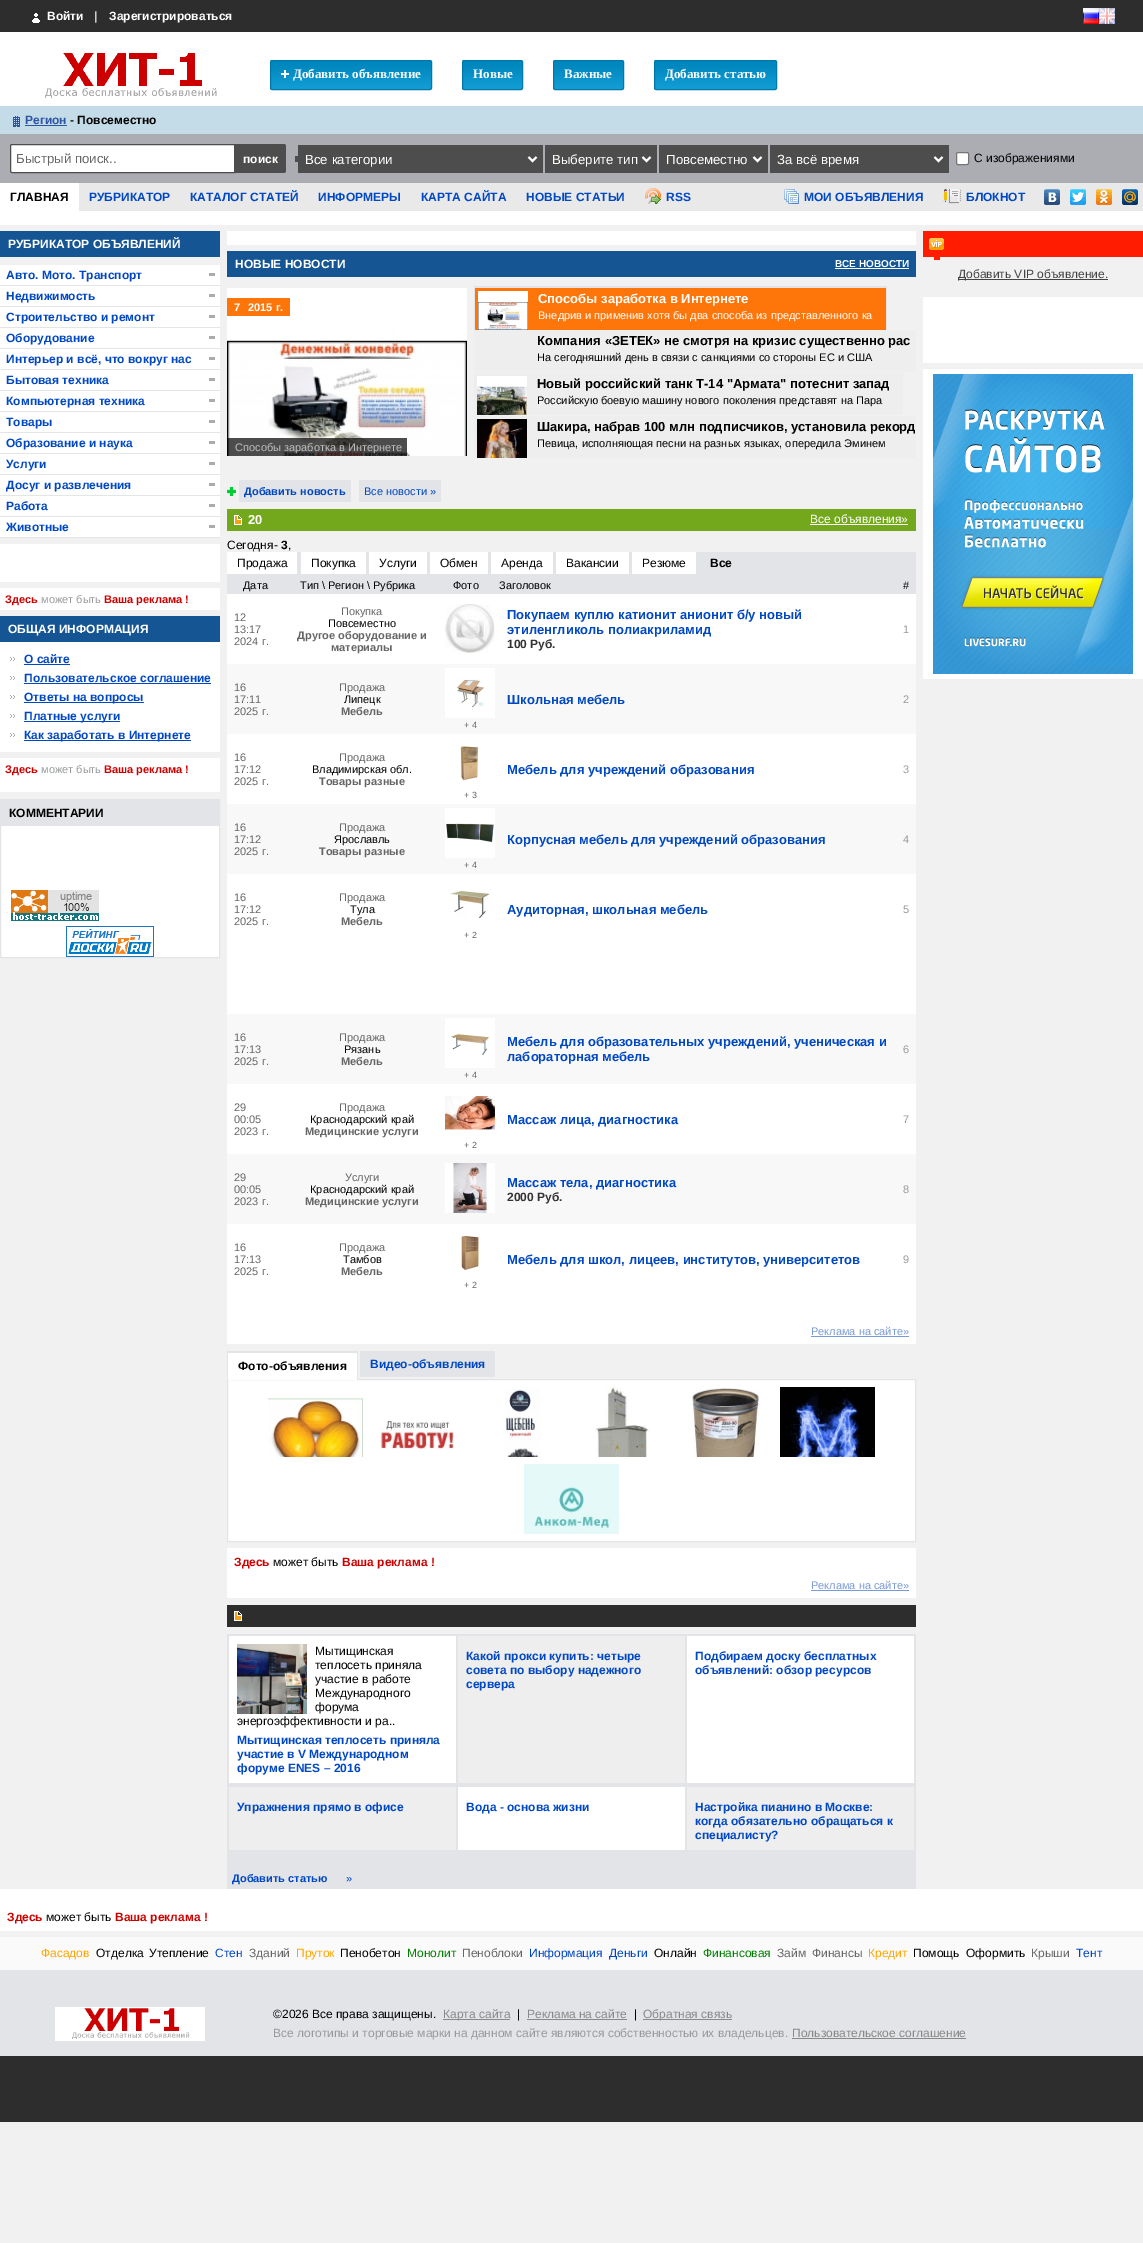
%!PS
<< /PageSize [1143 2243] /PageUsesTransparency true >> setpagedevice
/rgb { dup -16 bitshift 255 div exch dup -8 bitshift 255 and 255 div exch 255 and 255 div setrgbcolor } def
/font { [ exch dup neg 0 0 3 -1 roll 0 0 ] selectfont } def
/text { moveto show } def
/alpha { dup .setfillconstantalpha .setstrokeconstantalpha } def
/roundrect { 5 dict begin { /r /h /w /y /x } { exch def } forall
  x r add y moveto x w add y 2 copy h add r arct x w add y h add x 1 index r arct
  x y h add x y r arct x y 2 copy exch w add exch r arct closepath end } def
/picture { 5 dict begin { /h /w /y /x /name } { exch def } forall
  gsave x y translate w h scale
  w h 8 [w 0 0 h 0 0] name (r) file false 3 colorimage grestore end } def
0 .pushpdf14devicefilter
0 2243 translate 1 -1 scale
4 setmiterlimit
/s1 { /LiberationSans-Bold 12 font 16#FFFFFF rgb } def
/s2 { /LiberationSerif-Bold 13 font 16#FFFFFF rgb } def
/s3 { /LiberationSans-Bold 12 font 16#2E54A5 rgb } def
/s4 { /LiberationSans-Bold 12 font 16#000000 rgb } def
/s5 { /LiberationSans-Regular 13.25 font 16#666666 rgb } def
/s6 { /LiberationSans-Regular 13.25 font 16#FFFFFF rgb } def
/s7 { /LiberationSans-Regular 12 font 16#000000 rgb } def
/s8 { /LiberationSans-Bold 12 font 16#0047C2 rgb } def
/s9 { /LiberationSans-Bold 11 font 16#CC0000 rgb } def
/s10 { /LiberationSans-Regular 11 font 16#97999B rgb } def
/s11 { /LiberationSans-Bold 10 font 16#FFFFFF rgb } def
/s12 { /LiberationSans-Bold 11 font 16#FFFFFF rgb } def
/s13 { /LiberationSans-Regular 11 font 16#BEBEBE rgb } def
/s14 { /LiberationSans-Bold 13 font 16#FFFFFF rgb } def
/s15 { /LiberationSans-Regular 11 font 16#FFFFFF rgb } def
/s16 { /LiberationSans-Bold 13 font 16#000000 rgb } def
/s17 { /LiberationSans-Regular 11 font 16#000000 rgb } def
/s18 { /LiberationSans-Bold 11 font 16#0047C2 rgb } def
/s19 { /LiberationSans-Regular 11 font 16#0047C2 rgb } def
/s20 { /LiberationSans-Regular 12 font 16#FFFFFF rgb } def
/s21 { /LiberationSans-Regular 11 font 16#666666 rgb } def
/s22 { /LiberationSans-Bold 11 font 16#666666 rgb } def
/s23 { /LiberationSans-Bold 13 font 16#0047C2 rgb } def
/s24 { /LiberationSans-Bold 12 font 16#333333 rgb } def
/s25 { /LiberationSans-Regular 9 font 16#666666 rgb } def
/s26 { /LiberationSans-Regular 11 font 16#799AD4 rgb } def
/s27 { /LiberationSans-Bold 12 font 16#CC0000 rgb } def
/s28 { /LiberationSans-Regular 12 font 16#444444 rgb } def
/s29 { /LiberationSans-Regular 12 font 16#FFA500 rgb } def
/s30 { /LiberationSans-Regular 12 font 16#0047C2 rgb } def
/s31 { /LiberationSans-Regular 12 font 16#666666 rgb } def
/s32 { /LiberationSans-Regular 12 font 16#008000 rgb } def
/s33 { /LiberationSans-Regular 12 font 16#888888 rgb } def
/s34 { /LiberationSans-Regular 12 font 16#97999B rgb } def
16#F1F1F1 rgb
0 0 1143 2243 rectfill
16#2D2D2D rgb
0 0 1143 32 rectfill
(pic1.raw) 32 13 8 10 picture
s1
(Войти) 47 20 text
16#CCCCCC rgb
94 20 moveto 2 0 (|) ashow
s1
(Зарегистрироваться) 109 20 text
(pic2.raw) 1083 8 16 16 picture
(pic3.raw) 1099 8 16 16 picture
0 32 1143 74 rectfill
(pic4.raw) 45 53 172 45 picture
gsave
270 60 162 30 2 roundrect clip newpath
gsave 270 61 moveto 432 61 lineto 432 89 lineto 270 89 lineto closepath clip newpath
<< /ShadingType 2 /ColorSpace /DeviceRGB /Coords [271 89 271 61] /Extend [true true] /Function << /FunctionType 3 /Domain [0 1] /Functions [<< /FunctionType 2 /Domain [0 1] /C0 [0.071 0.62 0.835] /C1 [0 0.529 0.745] /N 1 >> << /FunctionType 2 /Domain [0 1] /C0 [0 0.529 0.745] /C1 [0 0.529 0.745] /N 1 >>] /Bounds [0.86] /Encode [0 1 0 1] >> >> shfill grestore
grestore
16#0079A8 rgb
270.5 60.5 161 29 1.5 roundrect stroke
(pic5.raw) 281 70 8 8 picture
s2
(Добавить объявление) 293 78 text
gsave
462 60 61 30 2 roundrect clip newpath
gsave 462 61 moveto 523 61 lineto 523 89 lineto 462 89 lineto closepath clip newpath
<< /ShadingType 2 /ColorSpace /DeviceRGB /Coords [463 89 463 61] /Extend [true true] /Function << /FunctionType 3 /Domain [0 1] /Functions [<< /FunctionType 2 /Domain [0 1] /C0 [0.071 0.62 0.835] /C1 [0 0.529 0.745] /N 1 >> << /FunctionType 2 /Domain [0 1] /C0 [0 0.529 0.745] /C1 [0 0.529 0.745] /N 1 >>] /Bounds [0.86] /Encode [0 1 0 1] >> >> shfill grestore
grestore
16#0079A8 rgb
462.5 60.5 60 29 1.5 roundrect stroke
s2
(Новые) 473 78 text
gsave
553 60 71 30 2 roundrect clip newpath
gsave 553 61 moveto 624 61 lineto 624 89 lineto 553 89 lineto closepath clip newpath
<< /ShadingType 2 /ColorSpace /DeviceRGB /Coords [554 89 554 61] /Extend [true true] /Function << /FunctionType 3 /Domain [0 1] /Functions [<< /FunctionType 2 /Domain [0 1] /C0 [0.071 0.62 0.835] /C1 [0 0.529 0.745] /N 1 >> << /FunctionType 2 /Domain [0 1] /C0 [0 0.529 0.745] /C1 [0 0.529 0.745] /N 1 >>] /Bounds [0.86] /Encode [0 1 0 1] >> >> shfill grestore
grestore
16#0079A8 rgb
553.5 60.5 70 29 1.5 roundrect stroke
s2
(Важные) 564 78 text
gsave
654 60 123 30 2 roundrect clip newpath
gsave 654 61 moveto 777 61 lineto 777 89 lineto 654 89 lineto closepath clip newpath
<< /ShadingType 2 /ColorSpace /DeviceRGB /Coords [655 89 655 61] /Extend [true true] /Function << /FunctionType 3 /Domain [0 1] /Functions [<< /FunctionType 2 /Domain [0 1] /C0 [0.071 0.62 0.835] /C1 [0 0.529 0.745] /N 1 >> << /FunctionType 2 /Domain [0 1] /C0 [0 0.529 0.745] /C1 [0 0.529 0.745] /N 1 >>] /Bounds [0.86] /Encode [0 1 0 1] >> >> shfill grestore
grestore
16#0079A8 rgb
654.5 60.5 122 29 1.5 roundrect stroke
s2
(Добавить статью) 665 78 text
16#C4DCE7 rgb
0 106 1143 28 rectfill
(pic6.raw) 13 116 7 11 picture
s3
(Регион) 25 124 text
25 125 42 1 rectfill
s4
(- Повсеместно) 70 124 text
16#ABADB3 rgb
0 134 1143 49 rectfill
16#FFFFFF rgb
12 144.5 moveto 234.5 144.5 lineto 234.5 172.5 lineto 12 172.5 lineto 11 172.5 10.5 172 10.5 171 curveto 10.5 146 lineto 10.5 145 11 144.5 12 144.5 curveto closepath gsave fill grestore
16#4D4D4D rgb
stroke
s5
(Быстрый поиск..) 16 163 text
16#4D4D4D rgb
235 144 moveto 284 144 lineto 285 144 286 145 286 146 curveto 286 171 lineto 286 172 285 173 284 173 curveto 235 173 lineto closepath fill
s1
(поиск) 243 163 text
16#4D4D4D rgb
295 156 3 6 rectfill
298 145 245 28 rectfill
16#FFFFFF rgb
2 setlinewidth
528.5 157 moveto 532.5 161 lineto 536.5 157 lineto stroke
s6
(Все категории) 305 164 text
16#4D4D4D rgb
545 145 112 28 rectfill
16#FFFFFF rgb
642.5 157 moveto 646.5 161 lineto 650.5 157 lineto stroke
(Выберите тип) 552 164 text
16#4D4D4D rgb
659 145 109 28 rectfill
16#FFFFFF rgb
753.5 157 moveto 757.5 161 lineto 761.5 157 lineto stroke
(Повсеместно) 666 164 text
16#4D4D4D rgb
770 145 179 28 rectfill
16#FFFFFF rgb
934.5 157 moveto 938.5 161 lineto 942.5 157 lineto stroke
(За всё время) 777 164 text
956.5 152.5 12 12 1.5 roundrect gsave fill grestore
16#767676 rgb
1 setlinewidth
stroke
s7
(С изображениями) 974 162 text
16#E9E9E9 rgb
79 183 1064 28 rectfill
16#FFFFFF rgb
0 183 79 28 rectfill
s4
(ГЛАВНАЯ) 10 201 text
s8
(РУБРИКАТОР) 89 201 text
(КАТАЛОГ СТАТЕЙ) 190 201 text
(ИНФОРМЕРЫ) 318 201 text
(КАРТА САЙТА) 421 201 text
(НОВЫЕ СТАТЬИ) 526 201 text
(pic7.raw) 645 188 16 16 picture
(RSS) 666 201 text
(pic8.raw) 784 189 15 15 picture
(МОИ ОБЪЯВЛЕНИЯ) 804 201 text
(pic9.raw) 943 189 18 15 picture
(БЛОКНОТ) 966 201 text
(pic10.raw) 1044 189 16 16 picture
(pic11.raw) 1070 189 16 16 picture
(pic12.raw) 1096 189 16 16 picture
(pic13.raw) 1122 189 16 16 picture
16#FFFFFF rgb
0 211 1143 14 rectfill
16#165594 rgb
0 231 220 26 rectfill
s1
(РУБРИКАТОР ОБЪЯВЛЕНИЙ) 8 248 text
0 265 220 272 rectfill
16#E3E6E6 rgb
0 285 220 1 rectfill
16#ABABAB rgb
209 273 6 3 rectfill
s8
(Авто. Мото. Транспорт) 6 279 text
16#E3E6E6 rgb
0 306 220 1 rectfill
16#ABABAB rgb
209 294 6 3 rectfill
s8
(Недвижимость) 6 300 text
16#E3E6E6 rgb
0 327 220 1 rectfill
16#ABABAB rgb
209 315 6 3 rectfill
s8
(Строительство и ремонт) 6 321 text
16#E3E6E6 rgb
0 348 220 1 rectfill
16#ABABAB rgb
209 336 6 3 rectfill
s8
(Оборудование) 6 342 text
16#E3E6E6 rgb
0 369 220 1 rectfill
16#ABABAB rgb
209 357 6 3 rectfill
s8
(Интерьер и всё, что вокруг нас) 6 363 text
16#E3E6E6 rgb
0 390 220 1 rectfill
16#ABABAB rgb
209 378 6 3 rectfill
s8
(Бытовая техника) 6 384 text
16#E3E6E6 rgb
0 411 220 1 rectfill
16#ABABAB rgb
209 399 6 3 rectfill
s8
(Компьютерная техника) 6 405 text
16#E3E6E6 rgb
0 432 220 1 rectfill
16#ABABAB rgb
209 420 6 3 rectfill
s8
(Товары) 6 426 text
16#E3E6E6 rgb
0 453 220 1 rectfill
16#ABABAB rgb
209 441 6 3 rectfill
s8
(Образование и наука) 6 447 text
16#E3E6E6 rgb
0 474 220 1 rectfill
16#ABABAB rgb
209 462 6 3 rectfill
s8
(Услуги) 6 468 text
16#E3E6E6 rgb
0 495 220 1 rectfill
16#ABABAB rgb
209 483 6 3 rectfill
s8
(Досуг и развлечения) 6 489 text
16#E3E6E6 rgb
0 516 220 1 rectfill
16#ABABAB rgb
209 504 6 3 rectfill
s8
(Работа) 6 510 text
16#E3E6E6 rgb
0 537 220 1 rectfill
16#ABABAB rgb
209 525 6 3 rectfill
s8
(Животные) 6 531 text
16#FFFFFF rgb
0 544 220 38 rectfill
0 588 220 22 rectfill
s9
(Здесь) 5 603 text
s10
(может быть) 41 603 text
s9
(Ваша реклама !) 104 603 text
16#165594 rgb
0 616 220 26 rectfill
s1
(ОБЩАЯ ИНФОРМАЦИЯ) 8 633 text
0 642 220 110 rectfill
(pic14.raw) 10 657 5 4 picture
s8
(О сайте) 24 663 text
24 664 46 1 rectfill
(pic14.raw) 10 676 5 4 picture
(Пользовательское соглашение) 24 682 text
24 683 187 1 rectfill
(pic14.raw) 10 695 5 4 picture
24 702 120 1 rectfill
(Ответы на вопросы) 24 701 text
(pic14.raw) 10 714 5 4 picture
24 721 96 1 rectfill
(Платные услуги) 24 720 text
(pic14.raw) 10 733 5 4 picture
24 740 167 1 rectfill
(Как заработать в Интернете) 24 739 text
16#FFFFFF rgb
0 758 220 34 rectfill
s9
(Здесь) 5 773 text
s10
(может быть) 41 773 text
s9
(Ваша реклама !) 104 773 text
16#FFFFFF rgb
1 826 218 131 rectfill
16#E2E4E7 rgb
0.5 799.5 219 158 rectstroke
1 800 218 26 rectfill
s4
(КОММЕНТАРИИ) 9 817 text
(pic15.raw) 11 890 88 31 picture
(pic16.raw) 66 926 88 31 picture
16#FFFFFF rgb
227 231 689 14 rectfill
16#165594 rgb
227 251 689 26 rectfill
s1
(НОВЫЕ НОВОСТИ) 235 268 text
s11
(ВСЕ НОВОСТИ) 835 267 text
835 268 74 1 rectfill
(pic17.raw) 227 288 240 168 picture
16#FE750A rgb
227 298 63 18 rectfill
s12
(7) 234 311 text
(2015 г.) 248 311 text
0.7 alpha
16#000000 rgb
228 438 179 18 rectfill
1 alpha
s13
(Способы заработка в Интернете) 235 451 text
16#FE750A rgb
475 288 411 42 rectfill
16#E2E4E7 rgb
474 286 413 2 rectfill
886 286 1 44 rectfill
474 286 1 44 rectfill
(pic18.raw) 478 291 50 39 picture
s14
(Способы заработка в Интернете) 538 303 text
s15
(Внедрив и применив хотя бы два способа из представленного ка) 538 319 text
16#EEEEEE rgb
474 330 442 42 rectfill
s16
(Компания «ЗЕТЕК» не смотря на кризис существенно рас) 537 345 text
s17
(На сегодняшний день в связи с санкциями со стороны ЕС и США) 537 361 text
16#EEEEEE rgb
474 373 429 42 rectfill
(pic19.raw) 477 376 50 39 picture
s16
(Новый российский танк Т-14 "Армата" потеснит запад) 537 388 text
s17
(Российскую боевую машину нового поколения представят на Пара) 537 404 text
16#EEEEEE rgb
474 416 442 42 rectfill
(pic20.raw) 477 419 50 39 picture
s16
(Шакира, набрав 100 млн подписчиков, установила рекорд) 537 431 text
s17
(Певица, исполняющая песни на разных языках, опередила Эминем) 537 447 text
(pic21.raw) 227 487 9 9 picture
16#E2E4E7 rgb
239 480 112 22 rectfill
s18
(Добавить новость) 244 495 text
16#E2E4E7 rgb
359 480 82 22 rectfill
s19
(Все новости ») 364 495 text
16#74A81C rgb
227 509 689 22 rectfill
(pic22.raw) 234 515 8 10 picture
s14
(20) 248 524 text
s20
(Все объявления») 810 523 text
810 524 98 1 rectfill
s7
(Сегодня-) 227 549 text
s4
(3) 281 549 text
s7
(,) 288 549 text
16#E2E4E7 rgb
227 552 689 42 rectfill
16#FFFFFF rgb
227 552 70 22 rectfill
s7
(Продажа) 237 567 text
16#FFFFFF rgb
301 552 65 22 rectfill
s7
(Покупка) 311 567 text
16#FFFFFF rgb
369 552 58 22 rectfill
s7
(Услуги) 379 567 text
16#FFFFFF rgb
430 552 58 22 rectfill
s7
(Обмен) 440 567 text
16#FFFFFF rgb
491 552 62 22 rectfill
s7
(Аренда) 501 567 text
16#FFFFFF rgb
556 552 73 22 rectfill
s7
(Вакансии) 566 567 text
16#FFFFFF rgb
632 552 64 22 rectfill
s7
(Резюме) 642 567 text
s4
(Все) 710 567 text
s17
(Дата) 243 589 text
(Тип \\ Регион \\ Рубрика) 300 589 text
(Фото) 453 589 text
(Заголовок) 499 589 text
(#) 903 589 text
16#FFFFFF rgb
227 594 689 70 rectfill
s21
(12) 234 621 text
(13:17) 234 633 text
(2024 г.) 234 645 text
(Покупка) 341 615 text
s17
(Повсеместно) 328 627 text
s22
(Другое оборудование и) 297 639 text
(материалы) 331 651 text
(pic23.raw) 445 604 50 49 picture
s23
(Покупаем куплю катионит анионит б/у новый) 507 619 text
(этиленгликоль полиакриламид) 507 634 text
s24
(100 Руб.) 507 648 text
s10
(1) 903 633 text
16#F8F8F8 rgb
227 664 689 70 rectfill
s21
(16) 234 691 text
(17:11) 234 703 text
(2025 г.) 234 715 text
(Продажа) 339 691 text
s17
(Липецк) 344 703 text
s22
(Мебель) 341 715 text
s23
(Школьная мебель) 507 704 text
s10
(2) 903 703 text
(pic24.raw) 445 668 50 50 picture
s25
(+ 4) 464 728 text
16#FFFFFF rgb
227 734 689 70 rectfill
s21
(16) 234 761 text
(17:12) 234 773 text
(2025 г.) 234 785 text
(Продажа) 339 761 text
s17
(Владимирская обл.) 312 773 text
s22
(Товары разные) 319 785 text
s23
(Мебель для учреждений образования) 507 774 text
s10
(3) 903 773 text
(pic25.raw) 460 745 19 36 picture
s25
(+ 3) 464 798 text
16#F8F8F8 rgb
227 804 689 70 rectfill
s21
(16) 234 831 text
(17:12) 234 843 text
(2025 г.) 234 855 text
(Продажа) 339 831 text
s17
(Ярославль) 334 843 text
s22
(Товары разные) 319 855 text
s23
(Корпусная мебель для учреждений образования) 507 844 text
s10
(4) 903 843 text
(pic26.raw) 445 808 50 50 picture
s25
(+ 4) 464 868 text
16#FFFFFF rgb
227 874 689 140 rectfill
s21
(16) 234 901 text
(17:12) 234 913 text
(2025 г.) 234 925 text
(Продажа) 339 901 text
s17
(Тула) 350 913 text
s22
(Мебель) 341 925 text
s23
(Аудиторная, школьная мебель) 507 914 text
s10
(5) 903 913 text
(pic27.raw) 450 890 40 28 picture
s25
(+ 2) 464 938 text
16#F8F8F8 rgb
227 1014 689 70 rectfill
s21
(16) 234 1041 text
(17:13) 234 1053 text
(2025 г.) 234 1065 text
(Продажа) 339 1041 text
s17
(Рязань) 344 1053 text
s22
(Мебель) 341 1065 text
s23
(Мебель для образовательных учреждений, ученическая и) 507 1046 text
(лабораторная мебель) 507 1061 text
s10
(6) 903 1053 text
(pic28.raw) 445 1018 50 50 picture
s25
(+ 4) 464 1078 text
16#FFFFFF rgb
227 1084 689 70 rectfill
s21
(29) 234 1111 text
(00:05) 234 1123 text
(2023 г.) 234 1135 text
(Продажа) 339 1111 text
s17
(Краснодарский край) 310 1123 text
s22
(Медицинские услуги) 305 1135 text
s23
(Массаж лица, диагностика) 507 1124 text
s10
(7) 903 1123 text
(pic29.raw) 445 1095 50 35 picture
s25
(+ 2) 464 1148 text
16#F8F8F8 rgb
227 1154 689 70 rectfill
s21
(29) 234 1181 text
(00:05) 234 1193 text
(2023 г.) 234 1205 text
(Услуги) 345 1181 text
s17
(Краснодарский край) 310 1193 text
s22
(Медицинские услуги) 305 1205 text
(pic30.raw) 445 1163 50 50 picture
s23
(Массаж тела, диагностика) 507 1187 text
s24
(2000 Руб.) 507 1201 text
s10
(8) 903 1193 text
16#FFFFFF rgb
227 1224 689 70 rectfill
s21
(16) 234 1251 text
(17:13) 234 1263 text
(2025 г.) 234 1275 text
(Продажа) 339 1251 text
s17
(Тамбов) 343 1263 text
s22
(Мебель) 341 1275 text
s23
(Мебель для школ, лицеев, институтов, университетов) 507 1264 text
s10
(9) 903 1263 text
(pic31.raw) 461 1235 18 36 picture
s25
(+ 2) 464 1288 text
16#FFFFFF rgb
227 1294 689 50 rectfill
s26
(Реклама на сайте») 811 1335 text
811 1336 98 1 rectfill
16#FFFFFF rgb
227.5 1379.5 moveto 915.5 1379.5 lineto 915.5 1541.5 lineto 227.5 1541.5 lineto closepath gsave fill grestore
16#E2E4E7 rgb
stroke
16#FFFFFF rgb
228 1353 129 27 rectfill
16#E2E4E7 rgb
227 1351 131 2 rectfill
357 1351 1 29 rectfill
227 1351 1 29 rectfill
s4
(Фото-объявления) 238 1370 text
16#E2E4E7 rgb
360 1351 135 26 rectfill
s8
(Видео-объявления) 370 1368 text
(pic32.raw) 268 1397 95 60 picture
(pic33.raw) 380 1421 74 29 picture
(pic34.raw) 505 1389 36 68 picture
(pic35.raw) 596 1387 54 70 picture
(pic36.raw) 692 1388 67 69 picture
(pic37.raw) 780 1387 95 70 picture
(pic38.raw) 524 1464 95 70 picture
16#FFFFFF rgb
227 1548 689 50 rectfill
s27
(Здесь) 234 1566 text
s7
(может быть) 273 1566 text
s27
(Ваша реклама !) 342 1566 text
s26
(Реклама на сайте») 811 1589 text
811 1590 98 1 rectfill
16#2D2D2D rgb
227 1605 689 22 rectfill
(pic39.raw) 234 1611 8 10 picture
16#E2E4E7 rgb
227 1634 689 255 rectfill
16#FFFFFF rgb
229 1636 227 147 rectfill
(pic40.raw) 237 1644 70 70 picture
s7
(Мытищинская) 315 1655 text
(теплосеть приняла) 315 1669 text
(участие в работе) 315 1683 text
(Международного) 315 1697 text
(форума) 315 1711 text
(энергоэффективности и ра..) 237 1725 text
s8
(Мытищинская теплосеть приняла) 237 1744 text
(участие в V Международном) 237 1758 text
(форуме ENES – 2016) 237 1772 text
16#EEEEEE rgb
458 1636 227 147 rectfill
s8
(Какой прокси купить: четыре) 466 1660 text
(совета по выбору надежного) 466 1674 text
(сервера) 466 1688 text
16#FFFFFF rgb
687 1636 227 147 rectfill
s8
(Подбираем доску бесплатных) 695 1660 text
(объявлений: обзор ресурсов) 695 1674 text
16#EEEEEE rgb
229 1787 227 63 rectfill
s8
(Упражнения прямо в офисе) 237 1811 text
16#FFFFFF rgb
458 1787 227 63 rectfill
s8
(Вода - основа жизни) 466 1811 text
16#EEEEEE rgb
687 1787 227 63 rectfill
s8
(Настройка пианино в Москве:) 695 1811 text
(когда обязательно обращаться к) 695 1825 text
(специалисту?) 695 1839 text
s18
(Добавить статью) 232 1882 text
s19
(») 346 1882 text
16#FF1C00 rgb
934 257 6 3 rectfill
923 231 220 26 rectfill
(pic41.raw) 929 238 15 12 picture
16#444444 rgb
958 279 150 1 rectfill
s28
(Добавить VIP объявление.) 958 278 text
16#FFFFFF rgb
923 297 220 66 rectfill
923 369 220 310 rectfill
(pic42.raw) 933 374 200 300 picture
0 1889 1143 42 rectfill
s27
(Здесь) 7 1921 text
s7
(может быть) 46 1921 text
s27
(Ваша реклама !) 115 1921 text
16#FAFAFA rgb
0 1937 1143 33 rectfill
s29
(Фасадов) 41 1957 text
s7
(Отделка) 96 1957 text
(Утепление) 149 1957 text
s30
(Стен) 215 1957 text
s31
(Зданий) 249 1957 text
s29
(Пруток) 296 1957 text
s7
(Пенобетон) 340 1957 text
s32
(Монолит) 407 1957 text
s31
(Пеноблоки) 462 1957 text
s30
(Информация) 529 1957 text
(Деньги) 609 1957 text
s7
(Онлайн) 654 1957 text
s32
(Финансовая) 703 1957 text
s31
(Займ) 777 1957 text
(Финансы) 812 1957 text
s29
(Кредит) 868 1957 text
s7
(Помощь) 913 1957 text
(Оформить) 966 1957 text
s31
(Крыши) 1031 1957 text
s30
(Тент) 1076 1957 text
16#E2E4E7 rgb
0 1970 1143 86 rectfill
(pic43.raw) 55 2007 150 34 picture
s7
(©2026 Все права защищены.) 273 2018 text
16#888888 rgb
443 2019 67 1 rectfill
(Карта сайта) 443 2018 text
s7
(|) 517 2018 text
s33
(Реклама на сайте) 527 2018 text
527 2019 100 1 rectfill
s7
(|) 634 2018 text
16#888888 rgb
643 2019 89 1 rectfill
(Обратная связь) 643 2018 text
s34
(Все логотипы и торговые марки на данном сайте являются собственностью их владельцев.) 273 2037 text
s33
(Пользовательское соглашение) 792 2037 text
792 2038 174 1 rectfill
16#2D2D2D rgb
0 2056 1143 66 rectfill
.poppdf14devicefilter showpage
